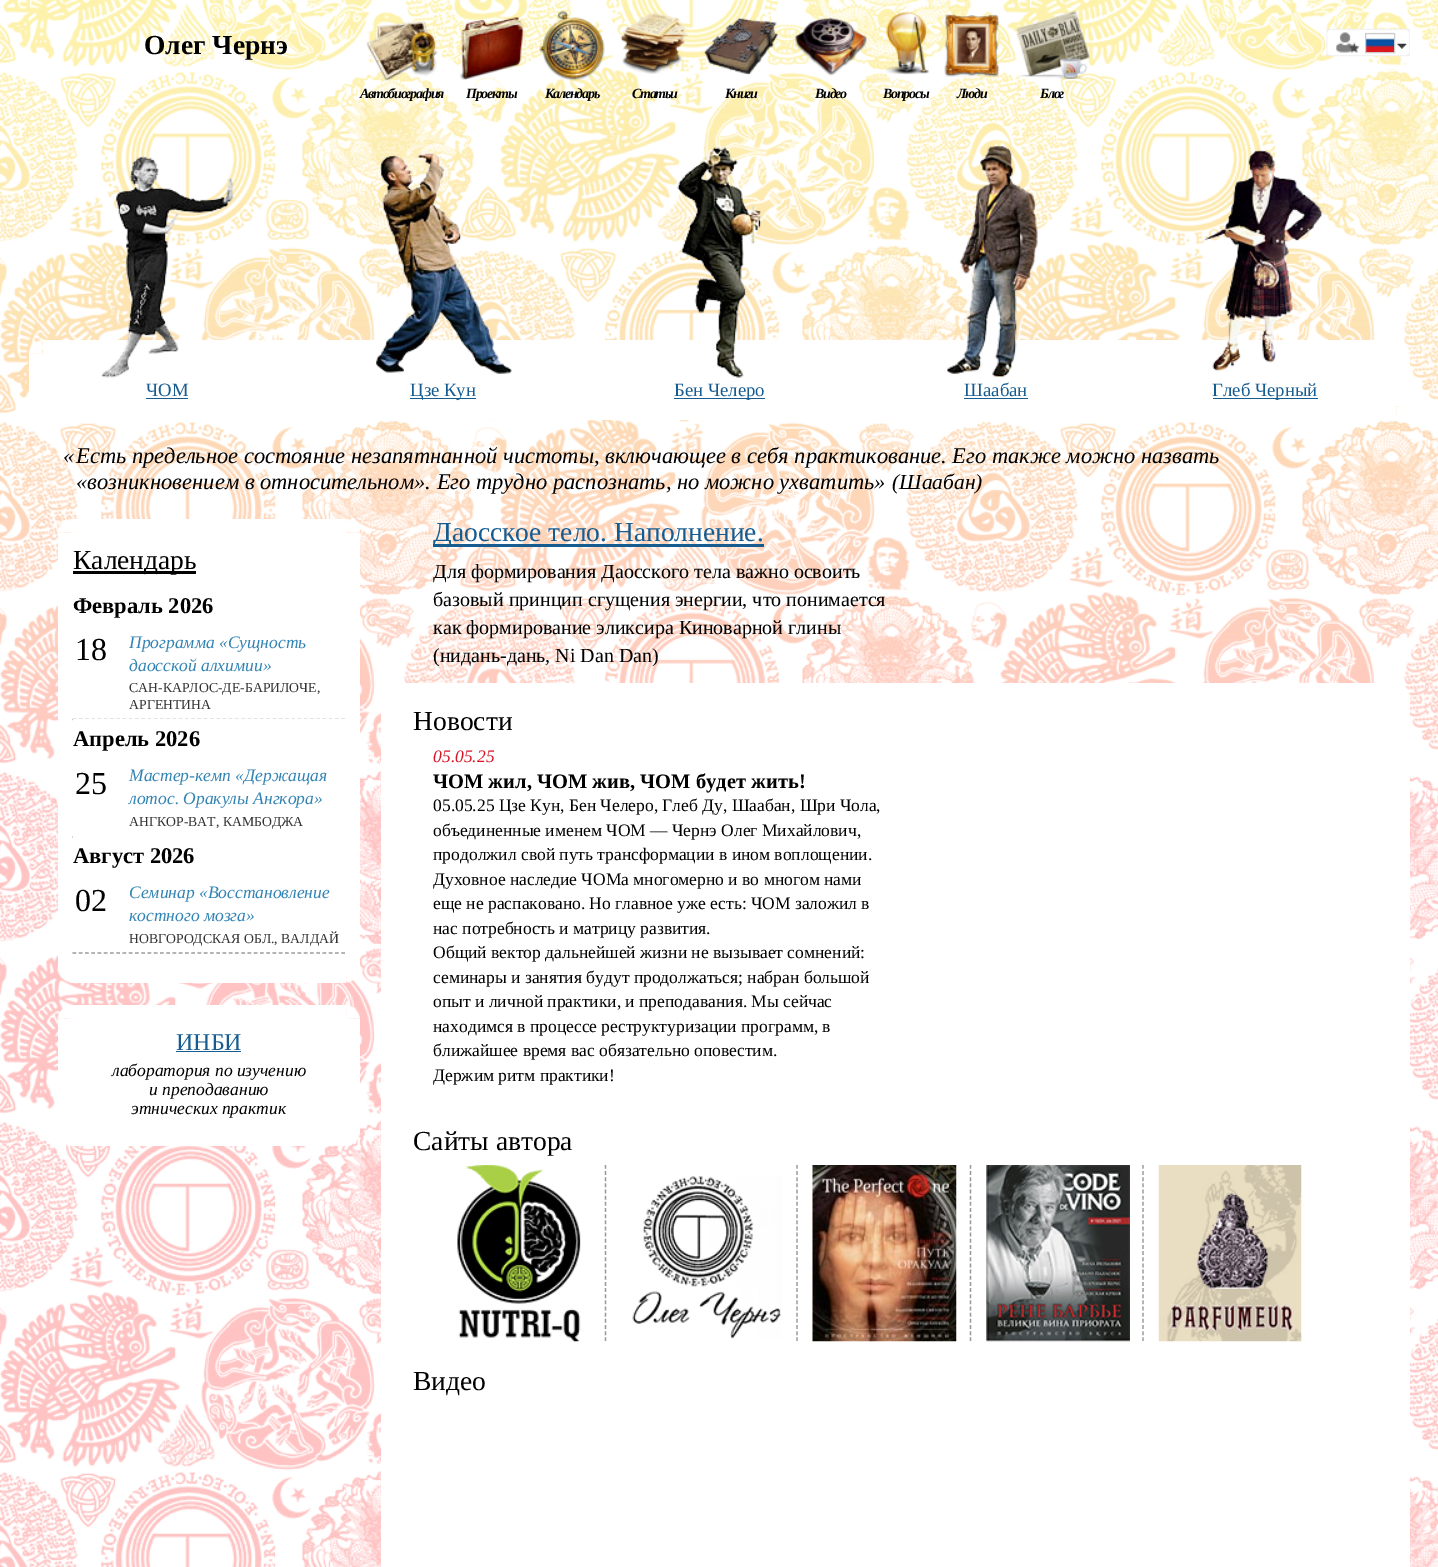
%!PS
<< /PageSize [1438 1567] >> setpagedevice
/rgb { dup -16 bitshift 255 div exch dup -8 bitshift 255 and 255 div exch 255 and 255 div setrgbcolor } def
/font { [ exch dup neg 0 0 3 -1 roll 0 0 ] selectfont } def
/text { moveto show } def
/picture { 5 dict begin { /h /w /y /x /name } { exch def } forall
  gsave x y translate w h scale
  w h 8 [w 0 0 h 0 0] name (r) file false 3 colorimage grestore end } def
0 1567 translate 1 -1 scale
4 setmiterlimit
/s1 { /LiberationSerif-Bold 27.5 font 16#000000 rgb } def
/s2 { /LiberationSerif-Regular 18.75 font 16#175C91 rgb } def
/s3 { /LiberationSerif-Italic 22.5 font 16#000000 rgb } def
/s4 { /LiberationSerif-Italic 21.5 font 16#000000 rgb } def
/s5 { /LiberationSerif-Regular 27.5 font 16#000000 rgb } def
/s6 { /LiberationSerif-Bold 22.5 font 16#000000 rgb } def
/s7 { /LiberationSerif-Regular 32 font 16#000000 rgb } def
/s8 { /LiberationSerif-Italic 17.5 font 16#3284B4 rgb } def
/s9 { /LiberationSerif-Regular 13.75 font 16#333333 rgb } def
/s10 { /LiberationSerif-Regular 24 font 16#175C91 rgb } def
/s11 { /LiberationSerif-Italic 17.5 font 16#000000 rgb } def
/s12 { /LiberationSerif-Regular 27.5 font 16#175C91 rgb } def
/s13 { /LiberationSerif-Regular 20 font 16#000000 rgb } def
/s14 { /LiberationSerif-Italic 17.5 font 16#DA1326 rgb } def
/s15 { /LiberationSerif-Bold 20.5 font 16#000000 rgb } def
/s16 { /LiberationSerif-Regular 17.5 font 16#000000 rgb } def
16#FFC3C3 rgb
0 0 1438 1567 rectfill
(pic1.raw) 0 0 1438 758 picture
(pic2.raw) 0 0 1438 1567 picture
s1
(Олег Чернэ) 144 54 text
(pic3.raw) 1326 28 84 29 picture
(pic4.raw) 1365 32 30 20 picture
16#CCCCCC rgb
1365.5 33.5 29 19 rectstroke
(pic5.raw) 366 21 72 60 picture
/LiberationSerif-BoldItalic 14 font
16#000000 rgb
360 98 moveto -1.25 0 (Автобиография) ashow
(pic6.raw) 460 17 64 63 picture
466 98 moveto -1.25 0 (Проекты) ashow
(pic7.raw) 539 11 66 70 picture
545 98 moveto -1.25 0 (Календарь) ashow
(pic8.raw) 620 12 68 62 picture
632 98 moveto -1.25 0 (Статьи) ashow
(pic9.raw) 703 17 75 58 picture
725 98 moveto -1.25 0 (Книги) ashow
(pic10.raw) 794 17 73 59 picture
815 98 moveto -1.25 0 (Видео) ashow
(pic11.raw) 885 11 44 64 picture
883 98 moveto -1.25 0 (Вопросы) ashow
(pic12.raw) 944 14 56 63 picture
957 98 moveto -1.25 0 (Люди) ashow
(pic13.raw) 1016 11 74 68 picture
1040 98 moveto -1.25 0 (Блог) ashow
16#FFFFFF rgb
29 354 1381 52 rectfill
(pic14.raw) 28 340 15 14 picture
43 340 1332 14 rectfill
(pic15.raw) 1405 346 5 8 picture
(pic16.raw) 101 156 133 222 picture
s2
(ЧОМ) 146 396 text
146 398 42 1 rectfill
(pic17.raw) 375 152 137 222 picture
410 398 66 1 rectfill
(Цзе Кун) 410 396 text
(pic18.raw) 677 131 85 247 picture
674 398 91 1 rectfill
(Бен Челеро) 674 396 text
(pic19.raw) 947 143 91 235 picture
(Шаабан) 964 396 text
964 398 64 1 rectfill
(pic20.raw) 1204 150 119 222 picture
1213 398 105 1 rectfill
(Глеб Черный) 1212 396 text
16#FFFFFF rgb
47 406 1349 14 rectfill
(pic21.raw) 1396 406 11 14 picture
s3
(«) 63 463 text
(Есть предельное состояние незапятнанной чистоты, включающее в себя практикование. Его также можно назвать) 76 463 text
(«возникновением в относительном». Его трудно распознать, но можно ухватить») 76 489 text
s4
(\(Шаабан\)) 892 489 text
16#FFFFFF rgb
58 533 302 436 rectfill
(pic22.raw) 57 518 15 15 picture
71 519 275 14 rectfill
(pic23.raw) 346 518 14 15 picture
16#000000 rgb
73 571 123 3 rectfill
s5
(Календарь) 73 569 text
s6
(Февраль 2026) 73 613 text
16#999999 rgb
1.2 setlinewidth
[3.75 2.5] 0 setdash
72.5 719.5 moveto 345 719.5 lineto stroke
s7
(18) 75 660 text
s8
(Программа «Сущность) 129 648 text
(даосской алхимии») 129 671 text
s9
(САН-КАРЛОС-ДЕ-БАРИЛОЧЕ,) 129 692 text
(АРГЕНТИНА) 129 709 text
16#FFFFFF rgb
73 719 272 2 rectfill
s6
(Апрель 2026) 73 746 text
16#999999 rgb
72.5 837 moveto 345 837 lineto stroke
s7
(25) 75 794 text
s8
(Мастер-кемп «Держащая) 129 781 text
(лотос. Оракулы Ангкора») 129 804 text
s9
(АНГКОР-ВАТ, КАМБОДЖА) 129 826 text
16#FFFFFF rgb
73 836 272 2 rectfill
s6
(Август 2026) 73 863 text
16#999999 rgb
72.5 953 moveto 345 953 lineto stroke
s7
(02) 75 911 text
s8
(Семинар «Восстановление) 129 898 text
(костного мозга») 129 921 text
s9
(НОВГОРОДСКАЯ ОБЛ., ВАЛДАЙ) 129 943 text
(pic24.raw) 57 968 15 15 picture
16#FFFFFF rgb
71 969 275 14 rectfill
(pic25.raw) 346 974 8 9 picture
58 1019 302 114 rectfill
(pic26.raw) 57 1008 14 11 picture
71 1005 275 14 rectfill
(pic27.raw) 346 1005 14 14 picture
s10
(ИНБИ) 176 1050 text
176 1051 65 1 rectfill
s11
(лаборатория по изучению) 112 1076 text
(и преподаванию) 149 1095 text
(этнических практик) 131 1114 text
(pic28.raw) 61 1133 11 14 picture
16#FFFFFF rgb
71 1133 275 13 rectfill
(pic29.raw) 346 1133 14 14 picture
16#175C91 rgb
433 544 331 3 rectfill
s12
(Даосское тело. Наполнение.) 433 541 text
s13
(Для формирования Даосского тела важно освоить) 433 578 text
(базовый принцип сгущения энергии, что понимается) 433 606 text
(как формирование эликсира Киноварной глины) 433 634 text
(\(нидань-дань, Ni Dan Dan\)) 433 662 text
16#FFFFFF rgb
381 696 1029 871 rectfill
403 683 972 13 rectfill
(pic30.raw) 1403 686 7 10 picture
s5
(Новости) 413 730 text
s14
(05.05.25) 433 762 text
s15
(ЧОМ жил, ЧОМ жив, ЧОМ будет жить!) 433 788 text
s16
(05.05.25 Цзе Кун, Бен Челеро, Глеб Ду, Шаабан, Шри Чола,) 433 811 text
(объединенные именем ЧОМ — Чернэ Олег Михайлович,) 433 836 text
(продолжил свой путь трансформации в ином воплощении.) 433 860 text
(Духовное наследие ЧОМа многомерно и во многом нами) 433 885 text
(еще не распаковано. Но главное уже есть: ЧОМ заложил в) 433 909 text
(нас потребность и матрицу развития.) 433 934 text
(Общий вектор дальнейшей жизни не вызывает сомнений:) 433 958 text
(семинары и занятия будут продолжаться; набран большой) 433 983 text
(опыт и личной практики, и преподавания. Мы сейчас) 433 1007 text
(находимся в процессе реструктуризации программ, в) 433 1032 text
(ближайшее время вас обязательно оповестим.) 433 1056 text
(Держим ритм практики!) 433 1081 text
s5
(Сайты автора) 413 1150 text
(pic31.raw) 457 1165 124 177 picture
16#999999 rgb
[3.75 2.41] 0 setdash
605.5 1165 moveto 605.5 1341 lineto stroke
(pic32.raw) 632 1176 150 163 picture
797 1165 moveto 797 1341 lineto stroke
(pic33.raw) 812 1165 145 177 picture
970.5 1165 moveto 970.5 1341 lineto stroke
(pic34.raw) 986 1165 144 177 picture
1143 1165 moveto 1143 1341 lineto stroke
(pic35.raw) 1158 1165 144 177 picture
s5
(Видео) 413 1390 text
showpage
